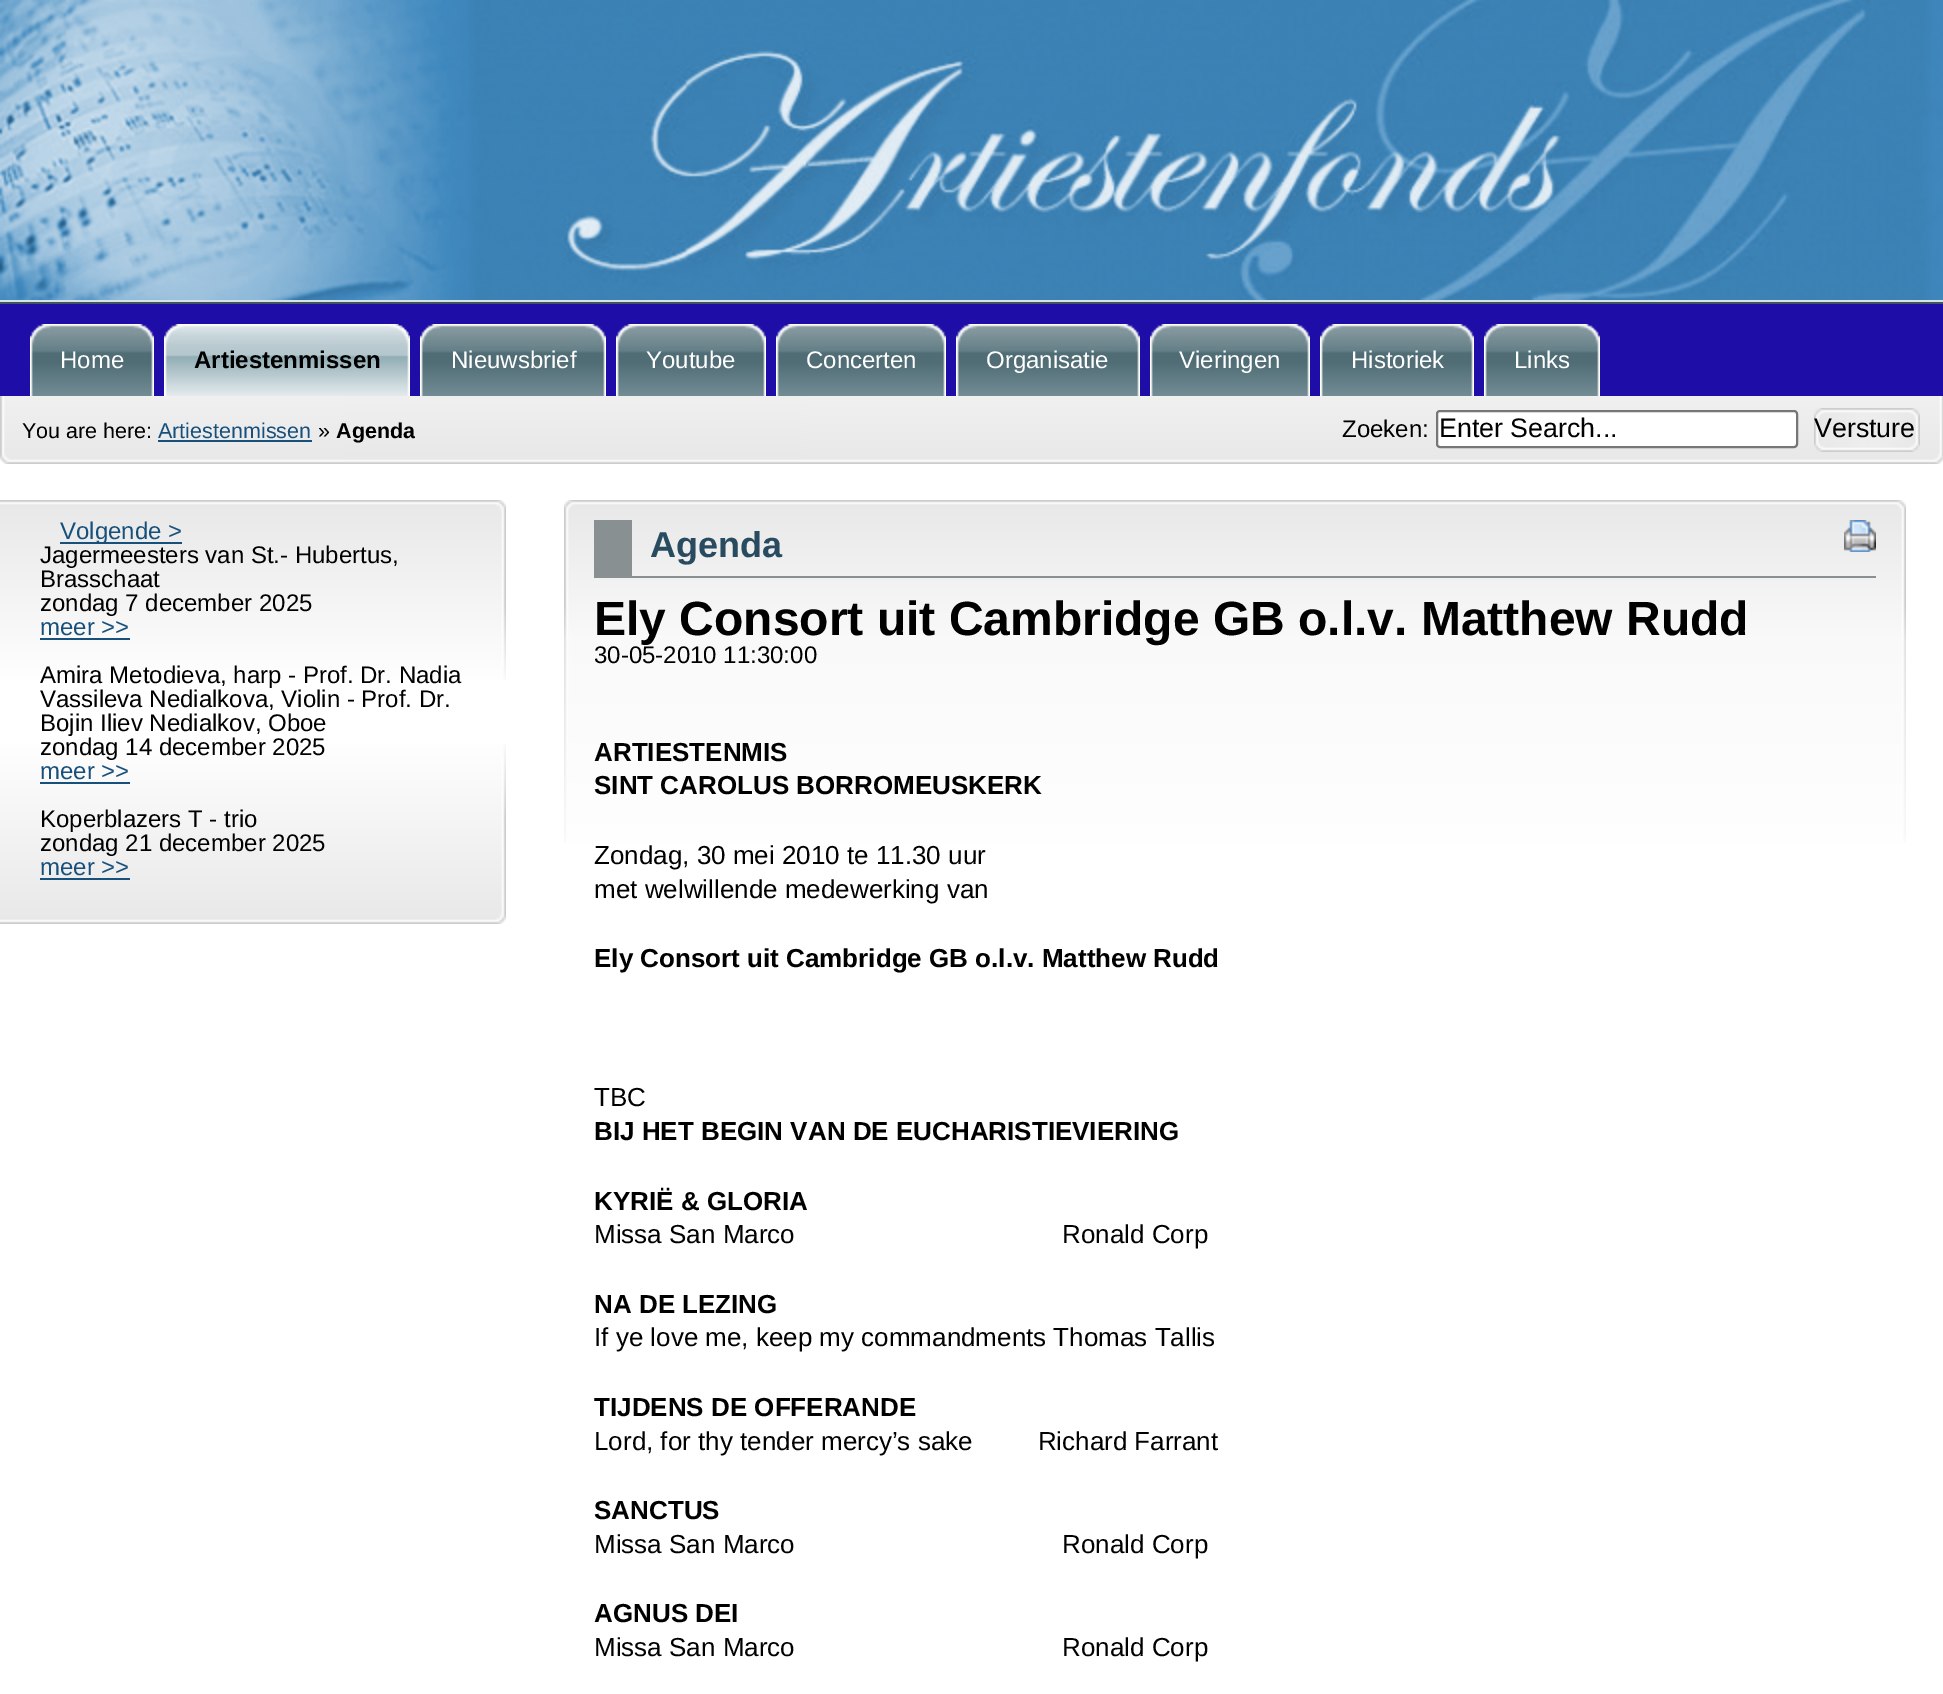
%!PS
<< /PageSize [1943 1694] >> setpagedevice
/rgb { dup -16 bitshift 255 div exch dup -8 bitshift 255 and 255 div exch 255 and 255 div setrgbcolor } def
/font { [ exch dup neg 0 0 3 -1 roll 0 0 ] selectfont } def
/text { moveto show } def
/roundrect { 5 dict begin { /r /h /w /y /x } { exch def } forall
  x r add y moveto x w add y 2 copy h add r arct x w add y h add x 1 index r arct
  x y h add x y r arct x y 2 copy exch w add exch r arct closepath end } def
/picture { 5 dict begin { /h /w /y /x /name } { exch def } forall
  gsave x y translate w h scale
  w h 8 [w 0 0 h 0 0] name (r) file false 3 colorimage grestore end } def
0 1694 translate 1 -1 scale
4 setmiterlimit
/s1 { /LiberationSans-Regular 24 font 16#FFFFFF rgb } def
/s2 { /LiberationSans-Bold 24 font 16#000000 rgb } def
/s3 { /LiberationSans-Regular 21.5 font 16#000000 rgb } def
/s4 { /LiberationSans-Regular 21.5 font 16#18507C rgb } def
/s5 { /LiberationSans-Bold 21.5 font 16#000000 rgb } def
/s6 { /LiberationSans-Regular 24 font 16#000000 rgb } def
/s7 { /LiberationSans-Regular 26.75 font 16#000000 rgb } def
/s8 { /LiberationSans-Regular 24 font 16#18507C rgb } def
/s9 { /LiberationSans-Bold 36 font 16#294B5F rgb } def
/s10 { /LiberationSans-Bold 48 font 16#000000 rgb } def
/s11 { /LiberationSans-Bold 26 font 16#000000 rgb } def
/s12 { /LiberationSans-Regular 26 font 16#000000 rgb } def
16#FFFFFF rgb
0 0 1943 1694 rectfill
16#D9E2E6 rgb
0 300 1943 2 rectfill
(pic1.raw) 0 0 1943 300 picture
16#1E0DA7 rgb
0 304 1943 92 rectfill
16#3F565C rgb
0 302 1943 2 rectfill
(pic2.raw) 132 324 22 72 picture
(pic3.raw) 30 324 102 72 picture
s1
(Home) 60 368 text
(pic4.raw) 397 324 13 13 picture
(pic5.raw) 388 324 22 72 picture
(pic6.raw) 164 324 224 72 picture
s2
(Artiestenmissen) 194 368 text
(pic2.raw) 584 324 22 72 picture
(pic7.raw) 420 324 164 72 picture
s1
(Nieuwsbrief) 451 368 text
(pic2.raw) 744 324 22 72 picture
(pic8.raw) 616 324 128 72 picture
(Youtube) 646 368 text
(pic2.raw) 924 324 22 72 picture
(pic9.raw) 776 324 148 72 picture
(Concerten) 806 368 text
(pic2.raw) 1118 324 22 72 picture
(pic10.raw) 956 324 162 72 picture
(Organisatie) 986 368 text
(pic2.raw) 1288 324 22 72 picture
(pic11.raw) 1150 324 138 72 picture
(Vieringen) 1179 368 text
(pic2.raw) 1452 324 22 72 picture
(pic12.raw) 1320 324 132 72 picture
(Historiek) 1351 368 text
(pic2.raw) 1578 324 22 72 picture
(pic13.raw) 1484 324 94 72 picture
(Links) 1514 368 text
(pic14.raw) 344 396 1599 68 picture
(pic15.raw) 0 396 344 68 picture
s3
(You are here:) 22 438 text
s4
(Artiestenmissen) 158 438 text
158 440 154 2 rectfill
s3
(») 318 438 text
s5
(Agenda) 336 438 text
s6
(Zoeken:) 1342 437 text
16#FFFFFF rgb
1437 411 360 36 3 roundrect gsave fill grestore
16#767676 rgb
2 setlinewidth
stroke
s7
(Enter Search...) 1439 437 text
(pic16.raw) 1814 408 106 44 picture
(Versture) 1814 437 text
(pic17.raw) 0 500 506 180 picture
(pic18.raw) 0 744 506 180 picture
16#18507C rgb
60 542 122 2 rectfill
s8
(Volgende >) 60 539 text
s6
(Jagermeesters van St.- Hubertus,) 40 563 text
(Brasschaat) 40 587 text
(zondag 7 december 2025) 40 611 text
s8
(meer >>) 40 635 text
40 638 90 2 rectfill
s6
(Amira Metodieva, harp - Prof. Dr. Nadia) 40 683 text
(Vassileva Nedialkova, Violin - Prof. Dr.) 40 707 text
(Bojin Iliev Nedialkov, Oboe) 40 731 text
(zondag 14 december 2025) 40 755 text
s8
(meer >>) 40 779 text
40 782 90 2 rectfill
s6
(Koperblazers T - trio) 40 827 text
(zondag 21 december 2025) 40 851 text
s8
(meer >>) 40 875 text
40 878 90 2 rectfill
(pic19.raw) 712 500 1194 343 picture
(pic20.raw) 564 500 148 343 picture
16#899092 rgb
632 576 1244 2 rectfill
594 520 38 58 rectfill
s9
(Agenda) 650 557 text
(pic21.raw) 1844 520 32 32 picture
s10
(Ely Consort uit Cambridge GB o.l.v. Matthew Rudd) 594 635 text
s6
(30-05-2010 11:30:00) 594 663 text
s11
(ARTIESTENMIS) 594 761 text
(SINT CAROLUS BORROMEUSKERK) 594 794 text
s12
(Zondag, 30 mei 2010 te 11.30 uur) 594 864 text
(met welwillende medewerking van) 594 898 text
s11
(Ely Consort uit Cambridge GB o.l.v. Matthew Rudd) 594 967 text
s12
(TBC) 594 1106 text
s11
(BIJ HET BEGIN VAN DE EUCHARISTIEVIERING) 594 1140 text
(KYRIË & GLORIA) 594 1210 text
s12
(Missa San Marco                                     Ronald Corp) 594 1243 text
s11
(NA DE LEZING) 594 1313 text
s12
(If ye love me, keep my commandments Thomas Tallis) 594 1346 text
s11
(TIJDENS DE OFFERANDE) 594 1416 text
s12
(Lord, for thy tender mercy’s sake         Richard Farrant) 594 1450 text
s11
(SANCTUS) 594 1519 text
s12
(Missa San Marco                                     Ronald Corp) 594 1553 text
s11
(AGNUS DEI) 594 1622 text
s12
(Missa San Marco                                     Ronald Corp) 594 1656 text
showpage
